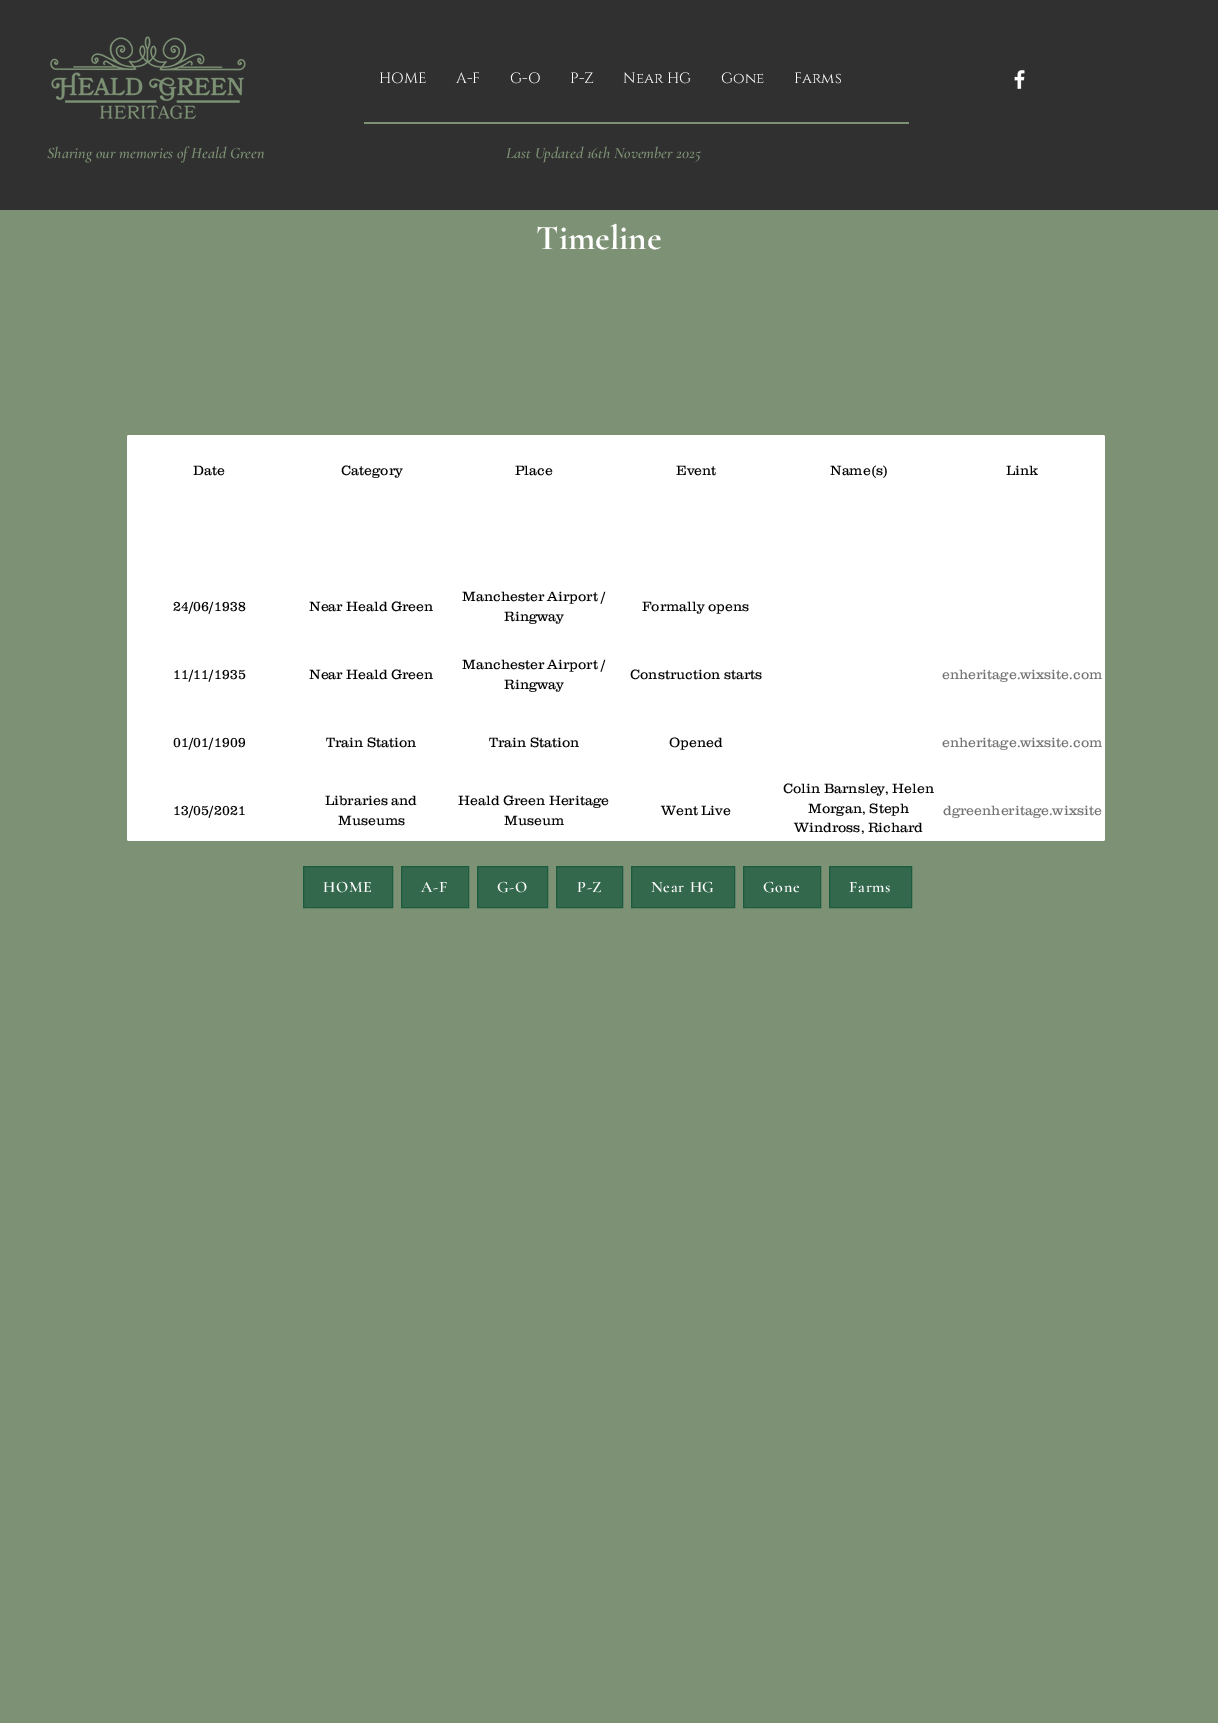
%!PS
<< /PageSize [1218 1723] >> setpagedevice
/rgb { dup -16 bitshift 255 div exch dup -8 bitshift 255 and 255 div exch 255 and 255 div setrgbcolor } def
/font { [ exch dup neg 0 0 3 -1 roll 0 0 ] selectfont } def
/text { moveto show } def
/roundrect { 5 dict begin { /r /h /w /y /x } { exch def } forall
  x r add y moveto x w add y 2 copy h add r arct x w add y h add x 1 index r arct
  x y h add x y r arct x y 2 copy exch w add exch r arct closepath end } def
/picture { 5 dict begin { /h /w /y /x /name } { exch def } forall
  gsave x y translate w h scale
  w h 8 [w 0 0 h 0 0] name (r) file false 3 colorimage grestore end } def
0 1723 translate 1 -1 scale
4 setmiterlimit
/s1 { /CormorantGaramond-SemiBoldItalic 16 font 16#7D9174 rgb } def
/s2 { /Cinzel-Regular 15 font 16#FFFFFF rgb } def
/s3 { /CormorantGaramond-Bold 35 font 16#FFFFFF rgb } def
/s4 { /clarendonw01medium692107-Light 14 font 16#000000 rgb } def
/s5 { /clarendonw01medium692107-Light 14 font 16#727272 rgb } def
16#7D9174 rgb
0 0 1218 1723 rectfill
16#303030 rgb
0 0 1218 210 rectfill
(pic1.raw) 50 36 196 84 picture
s1
(Sharing our memories of Heald Green) 47 158 text
s2
(HOME) 379 83 text
(A-F) 456 83 text
(G-O) 510 83 text
(P-Z) 570 83 text
(Near HG) 623 83 text
(Gone) 721 83 text
(Farms) 794 83 text
16#7D9174 rgb
364 122 545 2 rectfill
s1
(Last Updated 16th November 2025) 506 158 text
(pic2.raw) 1014 70 11 19 picture
s3
(Timeline) 536 249 text
127 435 978 406 2 roundrect fill
s4
(Date) 193 475 text
(Category) 341 475 text
(Place) 515 475 text
(Event) 676 475 text
(Name\(s\)) 830 475 text
(Link) 1006 475 text
(24/06/1938) 173 611 text
(Near Heald Green) 309 611 text
(Manchester Airport /) 462 601 text
(Ringway) 504 621 text
(Formally opens) 642 611 text
(11/11/1935) 173 679 text
(Near Heald Green) 309 679 text
(Manchester Airport /) 462 669 text
(Ringway) 504 689 text
(Construction starts) 630 679 text
s5
(enheritage.wixsite.com) 942 679 text
s4
(01/01/1909) 173 747 text
(Train Station) 326 747 text
(Train Station) 489 747 text
(Opened) 669 747 text
s5
(enheritage.wixsite.com) 942 747 text
s4
(13/05/2021) 173 815 text
(Libraries and) 325 805 text
(Museums) 338 825 text
(Heald Green Heritage) 458 805 text
(Museum) 504 825 text
(Went Live) 661 815 text
(Colin Barnsley, Helen) 783 793 text
(Morgan, Steph) 808 813 text
(Windross, Richard) 794 832 text
s5
(dgreenheritage.wixsite) 943 815 text
16#33684C rgb
303.5 866.5 moveto 392.5 866.5 lineto 392.5 907.5 lineto 303.5 907.5 lineto closepath gsave fill grestore
16#1B5B3F rgb
stroke
/CormorantGaramond-SemiBold 16 font
16#FFFFFF rgb
323 892 moveto 0.75 0 (HOME) ashow
16#33684C rgb
401.5 866.5 moveto 468.5 866.5 lineto 468.5 907.5 lineto 401.5 907.5 lineto closepath gsave fill grestore
16#1B5B3F rgb
stroke
16#FFFFFF rgb
421 892 moveto 0.75 0 (A-F) ashow
16#33684C rgb
477.5 866.5 moveto 547.5 866.5 lineto 547.5 907.5 lineto 477.5 907.5 lineto closepath gsave fill grestore
16#1B5B3F rgb
stroke
16#FFFFFF rgb
497 892 moveto 0.75 0 (G-O) ashow
16#33684C rgb
556.5 866.5 moveto 622.5 866.5 lineto 622.5 907.5 lineto 556.5 907.5 lineto closepath gsave fill grestore
16#1B5B3F rgb
stroke
16#FFFFFF rgb
577 892 moveto 0.75 0 (P-Z) ashow
16#33684C rgb
631.5 866.5 moveto 734.5 866.5 lineto 734.5 907.5 lineto 631.5 907.5 lineto closepath gsave fill grestore
16#1B5B3F rgb
stroke
16#FFFFFF rgb
651 892 moveto 0.75 0 (Near HG) ashow
16#33684C rgb
743.5 866.5 moveto 820.5 866.5 lineto 820.5 907.5 lineto 743.5 907.5 lineto closepath gsave fill grestore
16#1B5B3F rgb
stroke
16#FFFFFF rgb
763 892 moveto 0.75 0 (Gone) ashow
16#33684C rgb
829.5 866.5 moveto 911.5 866.5 lineto 911.5 907.5 lineto 829.5 907.5 lineto closepath gsave fill grestore
16#1B5B3F rgb
stroke
16#FFFFFF rgb
849 892 moveto 0.75 0 (Farms) ashow
showpage
